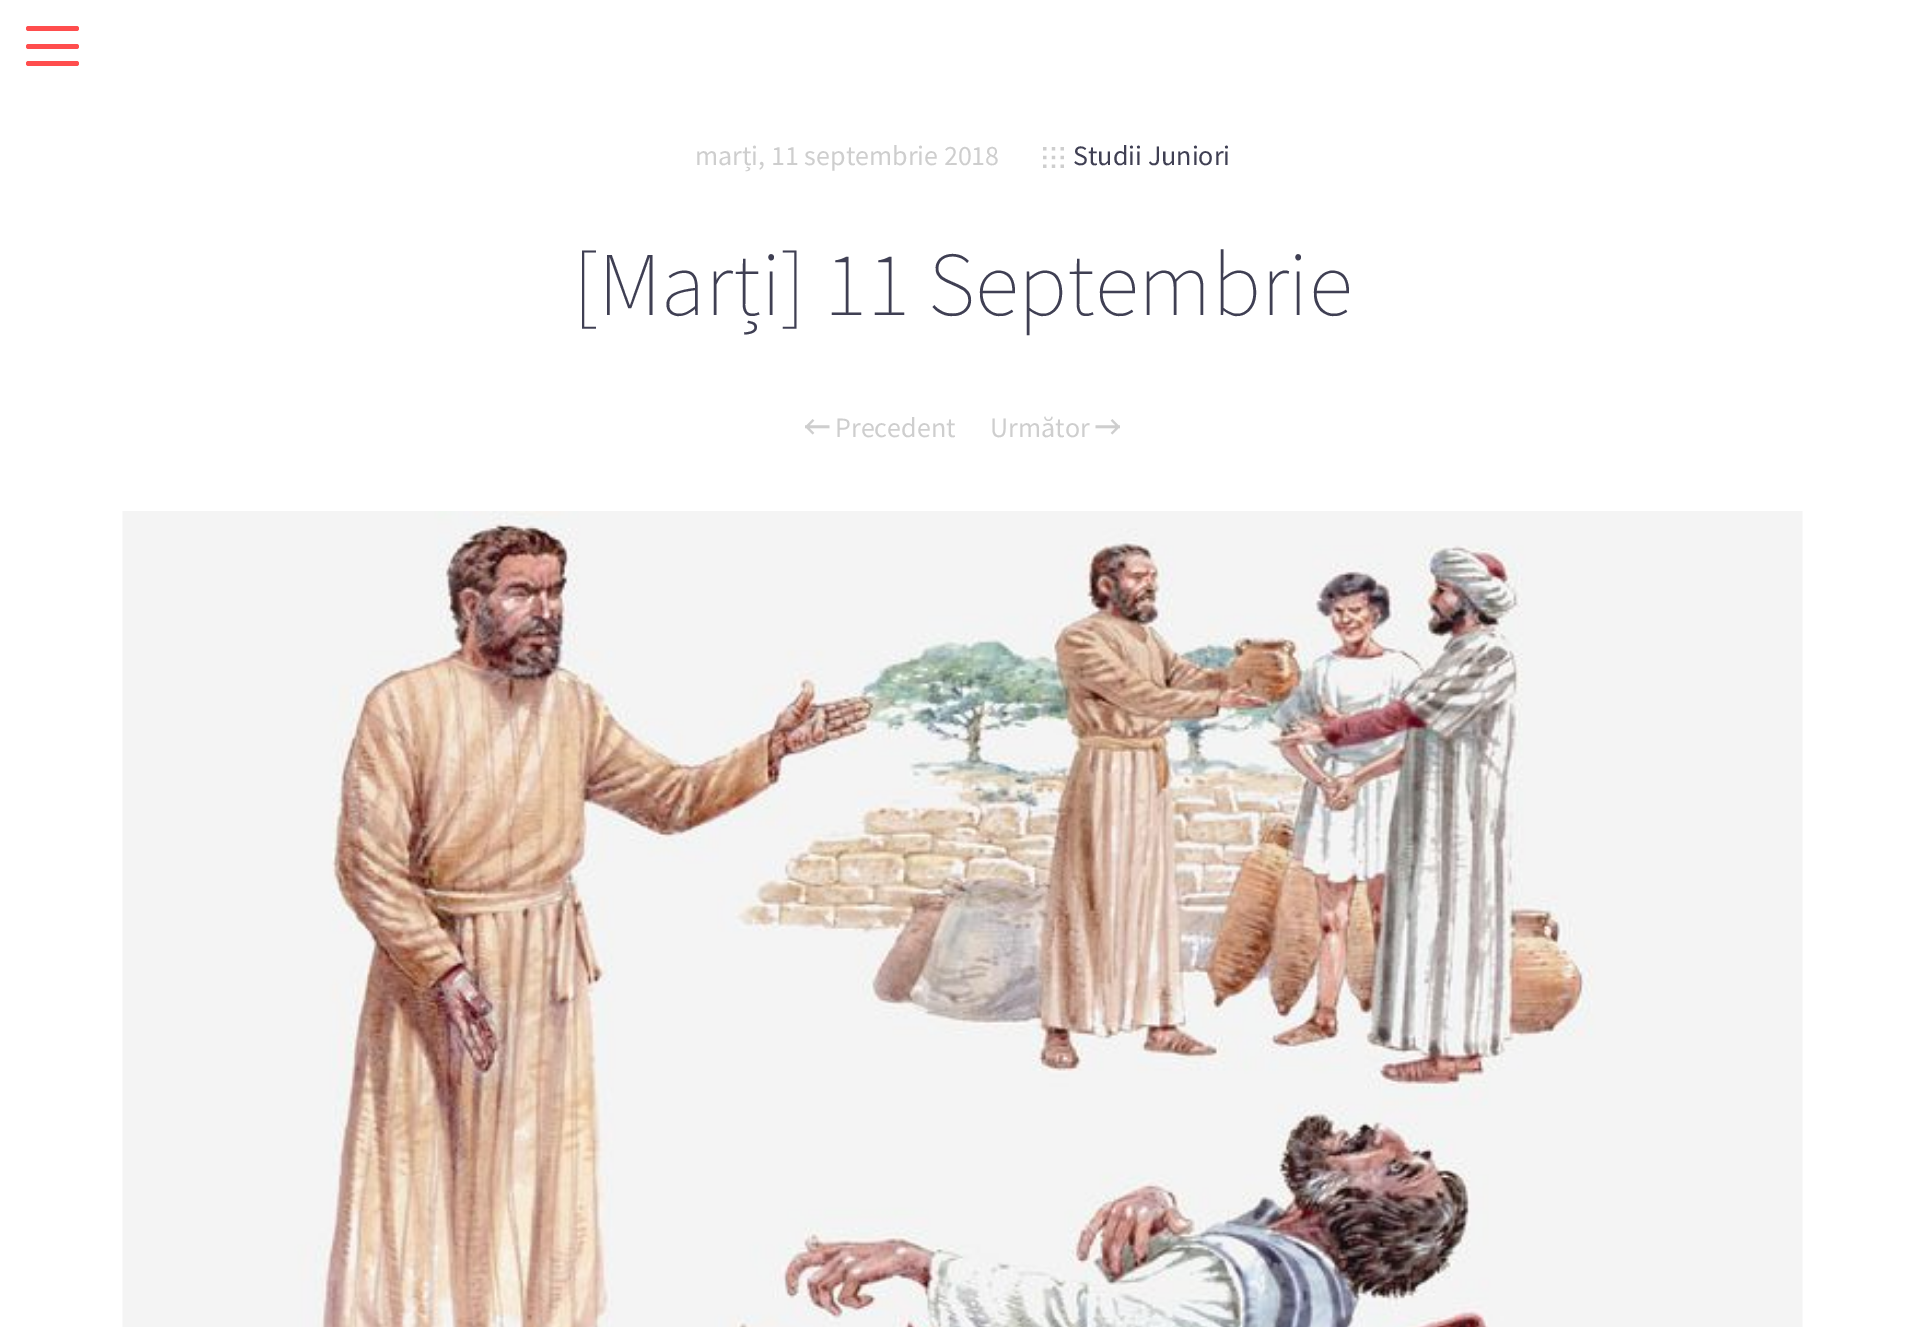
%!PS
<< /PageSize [1924 1327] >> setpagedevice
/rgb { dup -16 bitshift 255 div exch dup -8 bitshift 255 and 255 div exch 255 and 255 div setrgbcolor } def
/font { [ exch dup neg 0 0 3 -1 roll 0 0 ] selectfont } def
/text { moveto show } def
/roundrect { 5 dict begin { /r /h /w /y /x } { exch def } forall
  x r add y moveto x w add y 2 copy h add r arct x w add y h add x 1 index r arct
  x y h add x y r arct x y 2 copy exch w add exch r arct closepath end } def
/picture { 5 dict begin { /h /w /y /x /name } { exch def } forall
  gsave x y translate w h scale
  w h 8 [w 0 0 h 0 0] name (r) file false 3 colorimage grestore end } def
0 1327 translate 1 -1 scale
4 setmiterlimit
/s1 { /SourceSansPro-Regular 28 font 16#CECECE rgb } def
/s2 { /SourceSansPro-Regular 28 font 16#3F3F53 rgb } def
/s3 { /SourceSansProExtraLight-ExtraLight 91 font 16#3F3F53 rgb } def
16#FFFFFF rgb
0 0 1924 1327 rectfill
16#FF4D4D rgb
26 44 53 5 2.5 roundrect fill
26 26 53 5 2.5 roundrect fill
26 61 53 5 2.5 roundrect fill
s1
(marți, 11 septembrie 2018) 695 165 text
(pic1.raw) 1043 147 21 21 picture
s2
(Studii Juniori) 1073 165 text
s3
([Marți] 11 Septembrie) 573 315 text
(pic2.raw) 805 419 25 16 picture
s1
(Precedent) 835 437 text
(Următor) 990 437 text
(pic3.raw) 1095 419 25 16 picture
(pic4.raw) 122 511 1681 816 picture
showpage
